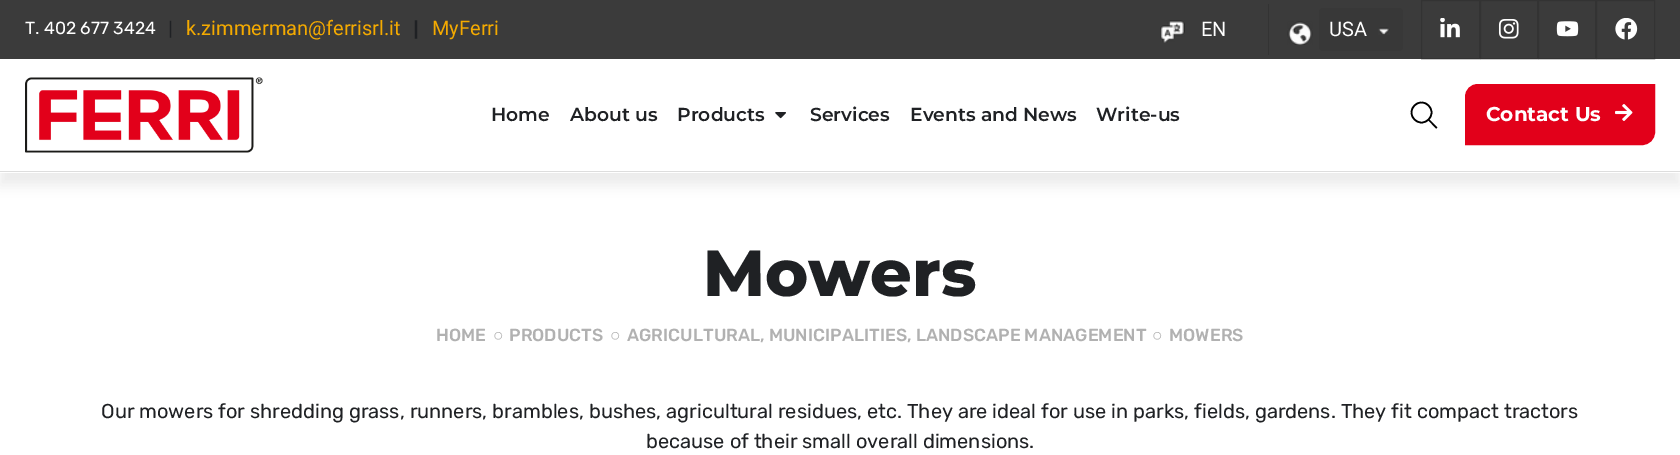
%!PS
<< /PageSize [1680 455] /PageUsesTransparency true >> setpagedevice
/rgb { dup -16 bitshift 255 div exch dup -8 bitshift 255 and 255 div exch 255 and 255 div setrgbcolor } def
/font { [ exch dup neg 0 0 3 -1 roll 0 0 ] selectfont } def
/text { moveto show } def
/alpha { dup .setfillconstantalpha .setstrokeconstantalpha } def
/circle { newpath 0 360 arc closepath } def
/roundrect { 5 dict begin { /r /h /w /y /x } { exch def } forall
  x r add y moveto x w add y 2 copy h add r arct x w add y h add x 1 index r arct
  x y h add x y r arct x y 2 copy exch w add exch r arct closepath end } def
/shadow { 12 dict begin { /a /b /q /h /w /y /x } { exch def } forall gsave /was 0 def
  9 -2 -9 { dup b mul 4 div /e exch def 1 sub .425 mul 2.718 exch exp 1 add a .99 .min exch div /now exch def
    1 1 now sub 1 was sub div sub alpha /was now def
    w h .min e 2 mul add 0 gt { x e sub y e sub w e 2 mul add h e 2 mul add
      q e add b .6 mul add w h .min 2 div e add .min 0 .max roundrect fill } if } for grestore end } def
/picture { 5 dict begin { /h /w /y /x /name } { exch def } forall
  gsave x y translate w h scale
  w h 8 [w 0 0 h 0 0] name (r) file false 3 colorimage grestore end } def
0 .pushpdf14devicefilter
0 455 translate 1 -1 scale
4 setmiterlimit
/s1 { /Rubik-Regular 17.5 font 16#FFFFFF rgb } def
/s2 { /Roboto-SemiBold 20 font 16#1F2124 rgb } def
/s3 { /Roboto-Regular 20 font 16#F4AA00 rgb } def
/s4 { /Montserrat-SemiBold 20 font 16#1F2124 rgb } def
/s5 { /Roboto-Regular 20 font 16#FFFFFF rgb } def
/s6 { /Montserrat-SemiBold 18.75 font 16#1F2124 rgb } def
/s7 { /Montserrat-Bold 20 font 16#FFFFFF rgb } def
/s8 { /Montserrat-ExtraBold 65 font 16#1F2124 rgb } def
/s9 { /Rubik-Medium 17.5 font 16#B1B1B1 rgb } def
/s10 { /LiberationSans-Regular 17.5 font 16#B1B1B1 rgb } def
/s11 { /Rubik-Regular 20 font 16#1F2124 rgb } def
16#FFFFFF rgb
0 0 1680 455 rectfill
gsave
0 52 moveto 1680 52 lineto 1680 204 lineto 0 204 lineto closepath 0 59 moveto 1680 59 lineto 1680 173 lineto 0 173 lineto closepath eoclip newpath
16#DDDDDD rgb
0 71 1680 114 0 6 0.54 shadow
grestore
16#3B3B3B rgb
0 0 1680 59 rectfill
s1
(T. 402 677 3424) 25 34 text
s2
(|) 168 35 text
s3
(k.zimmerman@ferrisrl.it) 186 35 text
s4
(|) 413 35 text
s3
(MyFerri) 432 35 text
(pic1.raw) 1160 20 25 23 picture
16#333333 rgb
1268 4 1 51 rectfill
s5
(EN) 1201 36 text
(pic2.raw) 1287 21 26 24 picture
16#383838 rgb
1319 8 84 43 4 roundrect fill
(pic3.raw) 1378 27 12 8 picture
s5
(USA) 1329 36 text
16#333333 rgb
1421.5 0.5 58 58 rectstroke
(pic4.raw) 1440 18 20 20 picture
1480.5 0.5 57 58 rectstroke
(pic5.raw) 1498 19 21 20 picture
1538.5 0.5 57 58 rectstroke
(pic6.raw) 1556 21 23 16 picture
1596.5 0.5 58 58 rectstroke
(pic7.raw) 1615 18 23 22 picture
16#DDDDDD rgb
0 171 1680 1 rectfill
(pic8.raw) 25 77 238 76 picture
s6
(Home) 491 121 text
(About us) 570 121 text
(Products) 677 121 text
(pic9.raw) 775 112 11 7 picture
(Services) 810 121 text
(Events and News) 910 121 text
(Write-us) 1096 121 text
16#000000 rgb
1.6 setlinewidth
1421.5 112.5 10 circle stroke
1435.5 128 moveto 1436.5 129 1437.5 127.5 1437 127 curveto closepath 1437 127 moveto 1429 119 lineto 1428 120 lineto 1435.5 128 lineto closepath fill
16#E2001A rgb
1478 85.5 moveto 1653.5 85.5 lineto 1653.5 132 lineto 1653.5 138.5 1648.5 143.5 1642 143.5 curveto 1466.5 143.5 lineto 1466.5 97 lineto 1466.5 90.5 1471.5 85.5 1478 85.5 curveto closepath gsave fill grestore
3 setlinewidth
stroke
s7
(Contact Us) 1486 121 text
(pic10.raw) 1615 104 18 17 picture
s8
(Mowers) 703 296 text
s9
(HOME) 436 341 text
s10
(○) 493 341 text
s9
(PRODUCTS) 509 341 text
s10
(○) 610 341 text
s9
(AGRICULTURAL, MUNICIPALITIES, LANDSCAPE MANAGEMENT) 627 341 text
s10
(○) 1152 341 text
s9
(MOWERS) 1169 341 text
s11
(Our mowers for shredding grass, runners, brambles, bushes, agricultural residues, etc. They are ideal for use in parks, fields, gardens. They fit compact tractors) 101 418 text
(because of their small overall dimensions.) 646 448 text
.poppdf14devicefilter showpage
